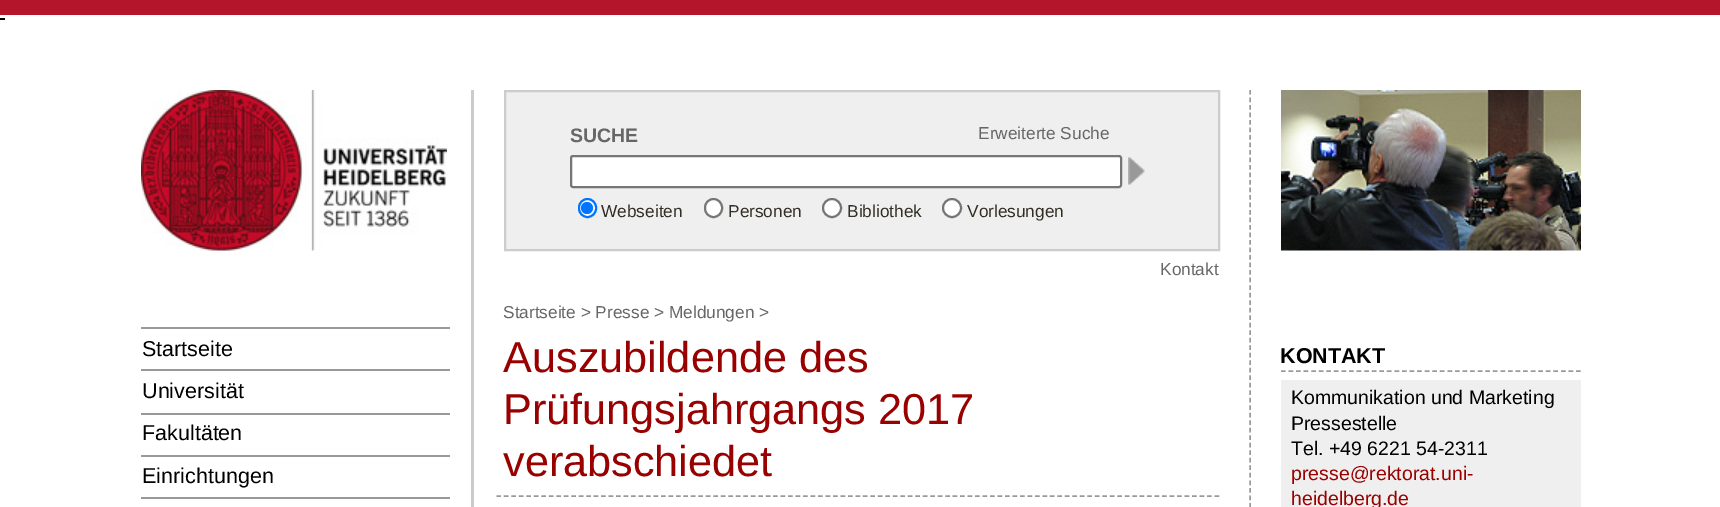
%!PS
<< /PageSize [1720 507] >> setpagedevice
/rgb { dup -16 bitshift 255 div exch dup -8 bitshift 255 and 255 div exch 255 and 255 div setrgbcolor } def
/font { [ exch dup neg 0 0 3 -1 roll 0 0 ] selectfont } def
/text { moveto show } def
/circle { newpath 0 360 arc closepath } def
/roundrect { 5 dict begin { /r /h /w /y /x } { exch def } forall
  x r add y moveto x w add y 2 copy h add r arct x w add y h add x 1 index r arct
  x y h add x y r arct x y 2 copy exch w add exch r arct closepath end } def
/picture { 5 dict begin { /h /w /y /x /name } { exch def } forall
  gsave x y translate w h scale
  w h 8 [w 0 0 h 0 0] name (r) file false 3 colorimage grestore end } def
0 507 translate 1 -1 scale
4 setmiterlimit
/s1 { /LiberationSans-Regular 21.5 font 16#000000 rgb } def
/s2 { /LiberationSans-Bold 19.5 font 16#666666 rgb } def
/s3 { /LiberationSans-Regular 17.25 font 16#666666 rgb } def
/s4 { /LiberationSans-Regular 17.25 font 16#312E25 rgb } def
/s5 { /LiberationSans-Regular 43.25 font 16#990000 rgb } def
/s6 { /LiberationSans-Bold 21.5 font 16#000000 rgb } def
/s7 { /LiberationSans-Regular 19.5 font 16#000000 rgb } def
/s8 { /LiberationSans-Regular 19.5 font 16#990000 rgb } def
16#FFFFFF rgb
0 0 1720 507 rectfill
16#B5152B rgb
0 0 1720 15 rectfill
16#000000 rgb
0 18 5 2 rectfill
(pic1.raw) 141 90 306 161 picture
16#999999 rgb
141 327 309 2 rectfill
s1
(Startseite) 142 356 text
16#999999 rgb
141 369 309 2 rectfill
s1
(Universität) 142 398 text
16#999999 rgb
141 413 309 2 rectfill
s1
(Fakultäten) 142 440 text
16#999999 rgb
141 455 309 2 rectfill
s1
(Einrichtungen) 142 483 text
16#999999 rgb
141 497 309 2 rectfill
1.5 setlinewidth
[4.5 3.01] 0 setdash
1250 90 moveto 1250 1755 lineto stroke
16#CCCCCC rgb
471 90 3 417 rectfill
16#EFEFEF rgb
505 91 moveto 1219 91 lineto 1219 250 lineto 505 250 lineto closepath gsave fill grestore
16#CCCCCC rgb
2 setlinewidth
[] 0 setdash
stroke
s2
(SUCHE) 570 142 text
s3
(Erweiterte Suche) 978 139 text
16#FFFFFF rgb
571 156 550 31 2 roundrect gsave fill grestore
16#767676 rgb
stroke
(pic2.raw) 1128 157 17 28 picture
16#FFFFFF rgb
579 199 17 18 8.5 roundrect gsave fill grestore
16#0075FF rgb
stroke
587 208 6 circle fill
s4
(Webseiten) 601 217 text
16#FFFFFF rgb
705 199 17 18 8.5 roundrect gsave fill grestore
16#767676 rgb
stroke
s4
(Personen) 728 217 text
16#FFFFFF rgb
832 208 9 circle gsave fill grestore
16#767676 rgb
stroke
s4
(Bibliothek) 847 217 text
16#FFFFFF rgb
952 208 9 circle gsave fill grestore
16#767676 rgb
stroke
s4
(Vorlesungen) 967 217 text
s3
(Kontakt) 1160 275 text
(Startseite > Presse > Meldungen >) 503 318 text
16#999999 rgb
1.5 setlinewidth
[4.5 2.98] 0 setdash
496.5 496 moveto 1219.5 496 lineto stroke
s5
(Auszubildende des) 503 372 text
(Prüfungsjahrgangs 2017) 503 424 text
(verabschiedet) 503 476 text
(pic3.raw) 1281 90 300 161 picture
16#999999 rgb
[4.5 3.07] 0 setdash
1281 371 moveto 1581 371 lineto stroke
s6
(KONTAKT) 1280 363 text
16#EFEFEF rgb
1281 380 300 127 rectfill
s7
(Kommunikation und Marketing) 1291 404 text
(Pressestelle) 1291 430 text
(Tel. +49 6221 54-2311) 1291 455 text
s8
(presse@rektorat.uni-) 1291 480 text
(heidelberg.de) 1291 505 text
showpage
